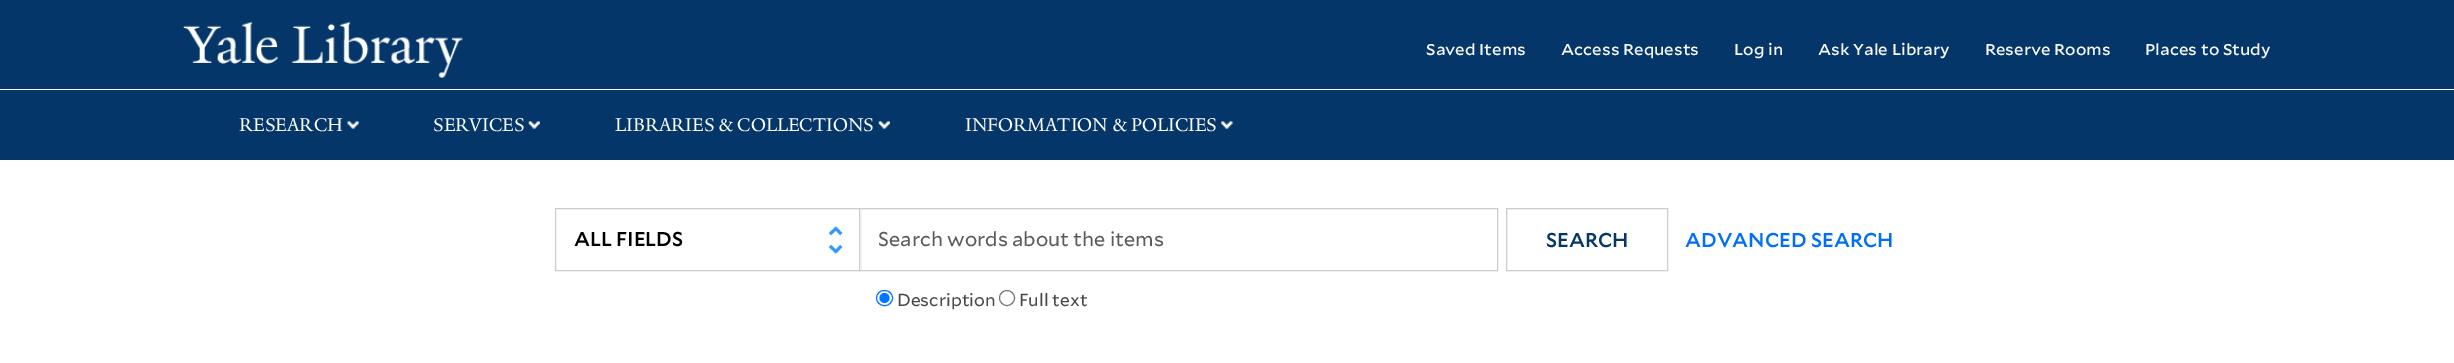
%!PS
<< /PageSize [2454 363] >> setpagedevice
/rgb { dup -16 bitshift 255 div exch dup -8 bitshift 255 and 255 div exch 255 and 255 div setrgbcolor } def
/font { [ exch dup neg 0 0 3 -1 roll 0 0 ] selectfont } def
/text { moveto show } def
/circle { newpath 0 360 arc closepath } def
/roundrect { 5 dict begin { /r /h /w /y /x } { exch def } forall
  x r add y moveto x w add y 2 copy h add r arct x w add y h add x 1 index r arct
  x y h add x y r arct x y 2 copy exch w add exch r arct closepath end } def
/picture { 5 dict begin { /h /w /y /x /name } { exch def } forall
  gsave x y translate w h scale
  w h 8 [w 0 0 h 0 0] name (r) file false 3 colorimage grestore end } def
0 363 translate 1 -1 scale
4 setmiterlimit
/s1 { /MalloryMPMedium-Medium 15 font 16#F9F9F9 rgb } def
/s2 { /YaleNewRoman-Regular 20 font 16#FFFFFF rgb } def
/s3 { /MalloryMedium-Medium 20 font 16#000000 rgb } def
/s4 { /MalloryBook-Regular 20 font 16#595C5F rgb } def
/s5 { /MalloryMedium-Medium 20 font 16#043669 rgb } def
/s6 { /MalloryMedium-Medium 20 font 16#006EF5 rgb } def
/s7 { /MalloryBook-Regular 17.5 font 16#4A4A4A rgb } def
16#FFFFFF rgb
0 0 2454 363 rectfill
16#043669 rgb
0 0 2454 89 rectfill
(pic1.raw) 183 21 280 57 picture
s1
(Saved Items) 1426 55 text
(Access Requests) 1561 55 text
(Log in) 1734 55 text
(Ask Yale Library) 1818 55 text
(Reserve Rooms) 1985 55 text
(Places to Study) 2145 55 text
16#043669 rgb
0 90 2454 70 rectfill
s2
(RESEARCH) 239 131 text
(pic2.raw) 347 121 12 8 picture
(SERVICES) 433 131 text
(pic3.raw) 528 121 12 8 picture
(LIBRARIES & COLLECTIONS) 615 131 text
(pic4.raw) 878 121 12 8 picture
(INFORMATION & POLICIES) 965 131 text
(pic5.raw) 1221 121 12 8 picture
(pic6.raw) 828 226 15 28 picture
16#CCCCCC rgb
555.5 208.5 305 62 rectstroke
s3
(ALL FIELDS) 574 246 text
16#FFFFFF rgb
860 209 1 61 rectfill
16#CCCCCC rgb
859.5 208.5 638 62 rectstroke
s4
(Search words about the items) 878 246 text
16#CCCCCC rgb
1506.5 208.5 161 62 rectstroke
s5
(SEARCH) 1546 247 text
s6
(ADVANCED SEARCH) 1685 247 text
16#0075FF rgb
876.5 290.5 16 15 7.5 roundrect stroke
884.5 298 5 circle fill
s7
(Description) 897 306 text
16#767676 rgb
1007 298 7.5 circle stroke
s7
(Full text) 1019 306 text
showpage
